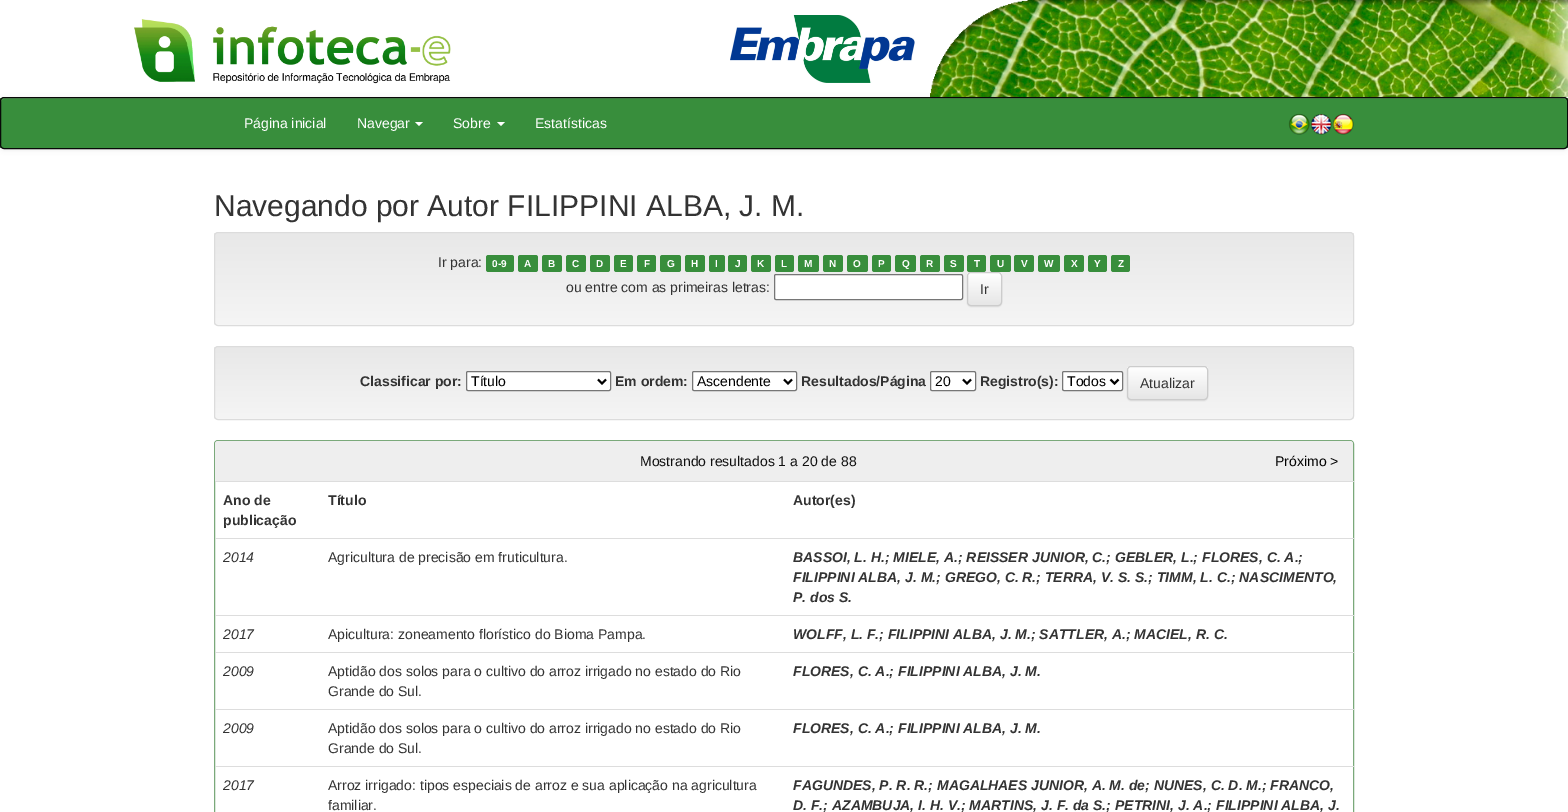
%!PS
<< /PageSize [1568 812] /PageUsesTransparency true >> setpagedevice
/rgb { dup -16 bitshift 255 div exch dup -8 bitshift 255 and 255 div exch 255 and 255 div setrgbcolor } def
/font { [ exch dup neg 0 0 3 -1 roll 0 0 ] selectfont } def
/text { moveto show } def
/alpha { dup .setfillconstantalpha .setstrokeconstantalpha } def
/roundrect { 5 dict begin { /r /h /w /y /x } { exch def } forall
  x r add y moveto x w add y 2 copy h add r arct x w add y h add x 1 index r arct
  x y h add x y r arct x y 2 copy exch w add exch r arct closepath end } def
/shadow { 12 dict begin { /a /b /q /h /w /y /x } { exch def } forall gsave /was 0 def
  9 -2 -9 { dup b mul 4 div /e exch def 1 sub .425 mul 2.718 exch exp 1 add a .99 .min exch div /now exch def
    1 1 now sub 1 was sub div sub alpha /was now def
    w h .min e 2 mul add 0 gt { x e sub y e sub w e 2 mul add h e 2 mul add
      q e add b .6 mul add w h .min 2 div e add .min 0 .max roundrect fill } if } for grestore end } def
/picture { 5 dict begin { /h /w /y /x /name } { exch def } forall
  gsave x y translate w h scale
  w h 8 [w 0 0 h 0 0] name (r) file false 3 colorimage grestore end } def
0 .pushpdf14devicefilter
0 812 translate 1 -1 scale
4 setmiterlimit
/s1 { /LiberationSans-Regular 14 font 16#FFFFFF rgb } def
/s2 { /LiberationSans-Regular 30 font 16#333333 rgb } def
/s3 { /LiberationSans-Regular 14 font 16#333333 rgb } def
/s4 { /LiberationSans-Bold 10 font 16#FFFFFF rgb } def
/s5 { /LiberationSans-Bold 14 font 16#333333 rgb } def
/s6 { /LiberationSans-Regular 14 font 16#000000 rgb } def
/s7 { /LiberationSans-Regular 14 font 16#101010 rgb } def
/s8 { /LiberationSans-Italic 14 font 16#333333 rgb } def
/s9 { /LiberationSans-BoldItalic 14 font 16#333333 rgb } def
16#FFFFFF rgb
0 0 1568 812 rectfill
(pic1.raw) 134 19 317 65 picture
(pic2.raw) 730 15 185 68 picture
(pic3.raw) 930 0 638 97 picture
16#000000 rgb
0 98 1568 52 4 2.5 0.07 shadow
gsave
0 97 1568 52 4 roundrect clip newpath
16#388E3C rgb
0 98 1568 50 rectfill
grestore
16#569F59 rgb
4 99 moveto 1564 99 lineto 1566 99 1567 100 1567 102 curveto 1567 101 lineto 1567 99 1566 98 1564 98 curveto 4 98 lineto 2 98 1 99 1 101 curveto 1 102 lineto 1 100 2 99 4 99 curveto closepath fill
16#080808 rgb
0.5 97.5 1567 51 3.5 roundrect stroke
s1
(Página inicial) 244 128 text
(Navegar) 357 128 text
415 122 moveto 423 122 lineto 419 126 lineto closepath fill
(Sobre) 453 128 text
497 122 moveto 505 122 lineto 501 126 lineto closepath fill
(Estatísticas) 535 128 text
(pic4.raw) 1288 113 22 22 picture
(pic5.raw) 1310 113 22 22 picture
(pic6.raw) 1332 113 22 22 picture
s2
(Navegando por Autor FILIPPINI ALBA, J. M.) 214 216 text
gsave
214 232 1140 94 4 roundrect clip newpath
gsave 214 233 moveto 1354 233 lineto 1354 325 lineto 214 325 lineto closepath clip newpath
<< /ShadingType 2 /ColorSpace /DeviceRGB /Coords [784 233 784 325] /Extend [true true] /Function << /FunctionType 2 /Domain [0 1] /C0 [0.91 0.91 0.91] /C1 [0.961 0.961 0.961] /N 1 >> >> shfill grestore
grestore
16#DCDCDC rgb
214.5 232.5 1139 93 3.5 roundrect stroke
s3
(Ir para:) 438 267 text
16#388E3C rgb
486 255 28 17 2.5 roundrect fill
s4
(0-9) 492 267 text
16#388E3C rgb
518 255 20 17 2.5 roundrect fill
s4
(A) 524 267 text
16#388E3C rgb
542 255 20 17 2.5 roundrect fill
s4
(B) 548 267 text
16#388E3C rgb
566 255 20 17 2.5 roundrect fill
s4
(C) 572 267 text
16#388E3C rgb
590 255 20 17 2.5 roundrect fill
s4
(D) 596 267 text
16#388E3C rgb
614 255 19 17 2.5 roundrect fill
s4
(E) 620 267 text
16#388E3C rgb
637 255 19 17 2.5 roundrect fill
s4
(F) 644 267 text
16#388E3C rgb
660 255 21 17 2.5 roundrect fill
s4
(G) 667 267 text
16#388E3C rgb
685 255 20 17 2.5 roundrect fill
s4
(H) 691 267 text
16#388E3C rgb
709 255 16 17 2.5 roundrect fill
s4
(I) 715 267 text
16#388E3C rgb
728 255 19 17 2.5 roundrect fill
s4
(J) 735 267 text
16#388E3C rgb
751 255 20 17 2.5 roundrect fill
s4
(K) 757 267 text
16#388E3C rgb
775 255 19 17 2.5 roundrect fill
s4
(L) 781 267 text
16#388E3C rgb
798 255 21 17 2.5 roundrect fill
s4
(M) 804 267 text
16#388E3C rgb
823 255 20 17 2.5 roundrect fill
s4
(N) 829 267 text
16#388E3C rgb
847 255 21 17 2.5 roundrect fill
s4
(O) 853 267 text
16#388E3C rgb
872 255 19 17 2.5 roundrect fill
s4
(P) 878 267 text
16#388E3C rgb
895 255 21 17 2.5 roundrect fill
s4
(Q) 902 267 text
16#388E3C rgb
920 255 20 17 2.5 roundrect fill
s4
(R) 926 267 text
16#388E3C rgb
944 255 20 17 2.5 roundrect fill
s4
(S) 950 267 text
16#388E3C rgb
967 255 19 17 2.5 roundrect fill
s4
(T) 974 267 text
16#388E3C rgb
990 255 21 17 2.5 roundrect fill
s4
(U) 997 267 text
16#388E3C rgb
1014 255 20 17 2.5 roundrect fill
s4
(V) 1021 267 text
16#388E3C rgb
1038 255 22 17 2.5 roundrect fill
s4
(W) 1044 267 text
16#388E3C rgb
1064 255 20 17 2.5 roundrect fill
s4
(X) 1071 267 text
16#388E3C rgb
1088 255 19 17 2.5 roundrect fill
s4
(Y) 1094 267 text
16#388E3C rgb
1111 255 19 17 2.5 roundrect fill
s4
(Z) 1118 267 text
s3
(ou entre com as primeiras letras:) 566 292 text
16#FFFFFF rgb
774.5 274.5 188 25 1.5 roundrect gsave fill grestore
16#767676 rgb
stroke
16#000000 rgb
967 273 35 34 4 0.5 0.07 shadow
gsave
967 272 35 34 4 roundrect clip newpath
gsave 967 273 moveto 1002 273 lineto 1002 305 lineto 967 305 lineto closepath clip newpath
<< /ShadingType 2 /ColorSpace /DeviceRGB /Coords [985 273 985 305] /Extend [true true] /Function << /FunctionType 2 /Domain [0 1] /C0 [1 1 1] /C1 [0.902 0.902 0.902] /N 1 >> >> shfill grestore
grestore
16#CCCCCC rgb
967.5 272.5 34 33 3.5 roundrect stroke
s3
(Ir) 980 294 text
gsave
214 346 1140 74 4 roundrect clip newpath
gsave 214 347 moveto 1354 347 lineto 1354 419 lineto 214 419 lineto closepath clip newpath
<< /ShadingType 2 /ColorSpace /DeviceRGB /Coords [784 347 784 419] /Extend [true true] /Function << /FunctionType 2 /Domain [0 1] /C0 [0.91 0.91 0.91] /C1 [0.961 0.961 0.961] /N 1 >> >> shfill grestore
grestore
16#DCDCDC rgb
214.5 346.5 1139 73 3.5 roundrect stroke
s5
(Classificar por:) 360 386 text
16#FFFFFF rgb
466.5 371.5 144 19 1.5 roundrect gsave fill grestore
16#767676 rgb
stroke
16#000000 rgb
2 setlinewidth
598 379.5 moveto 602 383.5 lineto 606 379.5 lineto stroke
s6
(Título) 471 386 text
s5
(Em ordem:) 615 386 text
16#FFFFFF rgb
692.5 371.5 104 19 1.5 roundrect gsave fill grestore
16#767676 rgb
1 setlinewidth
stroke
16#000000 rgb
2 setlinewidth
784 379.5 moveto 788 383.5 lineto 792 379.5 lineto stroke
s6
(Ascendente) 697 386 text
s5
(Resultados/Página) 801 386 text
16#FFFFFF rgb
930.5 371.5 45 19 1.5 roundrect gsave fill grestore
16#767676 rgb
1 setlinewidth
stroke
16#000000 rgb
2 setlinewidth
963 379.5 moveto 967 383.5 lineto 971 379.5 lineto stroke
s6
(20) 935 386 text
s5
(Registro\(s\):) 980 386 text
16#FFFFFF rgb
1062.5 371.5 60 19 1.5 roundrect gsave fill grestore
16#767676 rgb
1 setlinewidth
stroke
16#000000 rgb
2 setlinewidth
1110.5 379.5 moveto 1114.5 383.5 lineto 1118.5 379.5 lineto stroke
s6
(Todos) 1067 386 text
1127 367 81 34 4 0.5 0.07 shadow
gsave
1127 366 81 34 4 roundrect clip newpath
gsave 1127 367 moveto 1208 367 lineto 1208 399 lineto 1127 399 lineto closepath clip newpath
<< /ShadingType 2 /ColorSpace /DeviceRGB /Coords [1168 367 1168 399] /Extend [true true] /Function << /FunctionType 2 /Domain [0 1] /C0 [1 1 1] /C1 [0.902 0.902 0.902] /N 1 >> >> shfill grestore
grestore
16#CCCCCC rgb
1 setlinewidth
1127.5 366.5 80 33 3.5 roundrect stroke
s3
(Atualizar) 1140 388 text
16#7AA97A rgb
214.5 440.5 1139 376 3.5 roundrect stroke
16#EEEEEE rgb
218 441 moveto 1350 441 lineto 1351.5 441 1353 442.5 1353 444 curveto 1353 481 lineto 215 481 lineto 215 444 lineto 215 442.5 216.5 441 218 441 curveto closepath fill
s7
(Mostrando resultados 1 a 20 de 88) 640 466 text
s6
(Próximo >) 1275 466 text
s5
(Ano de) 223 505 text
(publicação) 223 525 text
(Título) 328 505 text
16#DDDDDD rgb
215 481 1139 1 rectfill
s5
(Autor\(es\)) 793 505 text
s8
(2014) 223 562 text
s3
(Agricultura de precisão em fruticultura.) 328 562 text
16#DDDDDD rgb
215 538 1139 1 rectfill
s9
(BASSOI, L. H.; MIELE, A.; REISSER JUNIOR, C.; GEBLER, L.; FLORES, C. A.;) 793 562 text
(FILIPPINI ALBA, J. M.; GREGO, C. R.; TERRA, V. S. S.; TIMM, L. C.; NASCIMENTO,) 793 582 text
(P. dos S.) 793 602 text
s8
(2017) 223 639 text
s3
(Apicultura: zoneamento florístico do Bioma Pampa.) 328 639 text
16#DDDDDD rgb
215 615 1139 1 rectfill
s9
(WOLFF, L. F.; FILIPPINI ALBA, J. M.; SATTLER, A.; MACIEL, R. C.) 793 639 text
s8
(2009) 223 676 text
s3
(Aptidão dos solos para o cultivo do arroz irrigado no estado do Rio) 328 676 text
(Grande do Sul.) 328 696 text
16#DDDDDD rgb
215 652 1139 1 rectfill
s9
(FLORES, C. A.; FILIPPINI ALBA, J. M.) 793 676 text
s8
(2009) 223 733 text
s3
(Aptidão dos solos para o cultivo do arroz irrigado no estado do Rio) 328 733 text
(Grande do Sul.) 328 753 text
16#DDDDDD rgb
215 709 1139 1 rectfill
s9
(FLORES, C. A.; FILIPPINI ALBA, J. M.) 793 733 text
s8
(2017) 223 790 text
s3
(Arroz irrigado: tipos especiais de arroz e sua aplicação na agricultura) 328 790 text
(familiar.) 328 810 text
16#DDDDDD rgb
215 766 1139 1 rectfill
s9
(FAGUNDES, P. R. R.; MAGALHAES JUNIOR, A. M. de; NUNES, C. D. M.; FRANCO,) 793 790 text
(D. F.; AZAMBUJA, I. H. V.; MARTINS, J. F. da S.; PETRINI, J. A.; FILIPPINI ALBA, J.) 793 810 text
.poppdf14devicefilter showpage
